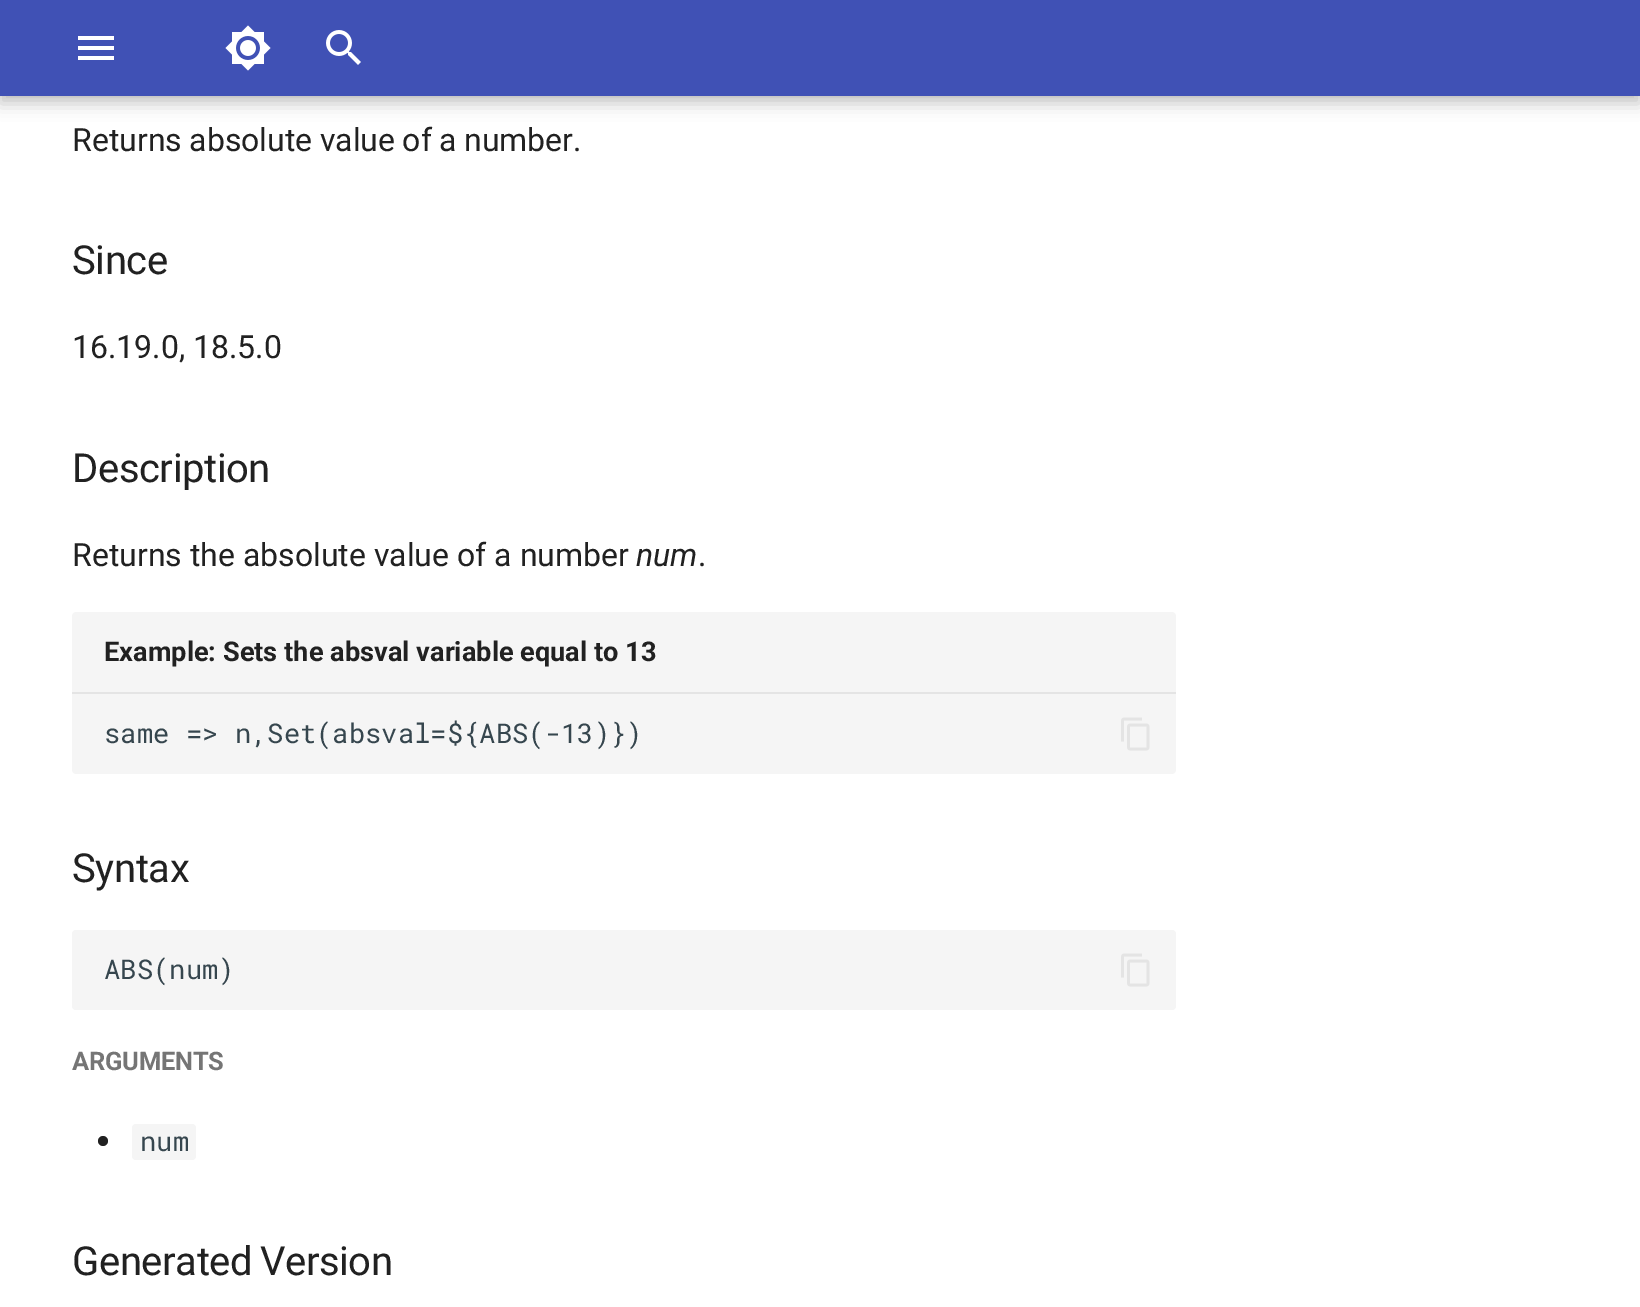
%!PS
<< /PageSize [1640 1307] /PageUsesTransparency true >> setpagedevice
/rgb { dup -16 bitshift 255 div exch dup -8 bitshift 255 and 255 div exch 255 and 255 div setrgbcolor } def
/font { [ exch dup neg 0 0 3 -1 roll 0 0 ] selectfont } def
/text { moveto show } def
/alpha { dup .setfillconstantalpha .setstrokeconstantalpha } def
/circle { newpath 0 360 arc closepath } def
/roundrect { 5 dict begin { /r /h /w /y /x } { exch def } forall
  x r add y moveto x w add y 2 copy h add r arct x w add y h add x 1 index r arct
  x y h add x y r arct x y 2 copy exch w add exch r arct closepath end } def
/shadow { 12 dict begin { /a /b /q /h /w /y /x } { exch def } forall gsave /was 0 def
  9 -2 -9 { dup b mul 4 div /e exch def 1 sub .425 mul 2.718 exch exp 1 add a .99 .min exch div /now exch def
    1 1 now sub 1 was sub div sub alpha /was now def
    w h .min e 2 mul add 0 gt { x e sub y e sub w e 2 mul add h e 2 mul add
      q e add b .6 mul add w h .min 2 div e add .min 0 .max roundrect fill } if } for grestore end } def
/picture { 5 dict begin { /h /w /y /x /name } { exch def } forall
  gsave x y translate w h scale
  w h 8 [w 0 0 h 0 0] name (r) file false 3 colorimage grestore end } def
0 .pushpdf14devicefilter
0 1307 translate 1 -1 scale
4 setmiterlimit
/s1 { /Roboto-Regular 32 font 16#212121 rgb } def
/s2 { /Roboto-Italic 32 font 16#212121 rgb } def
/s3 { /Roboto-Bold 27.2 font 16#212121 rgb } def
/s4 { /RobotoMono-Regular 27.2 font 16#36464E rgb } def
16#FFFFFF rgb
0 0 1640 1307 rectfill
16#000000 rgb
0 8 1640 96 0 8 0.2 shadow
0 0 1640 96 0 4 0.1 shadow
16#4051B5 rgb
0 0 1640 96 rectfill
16#FFFFFF rgb
78 36 moveto 114 36 lineto 114 40 lineto 78 40 lineto closepath 78 46 moveto 114 46 lineto 114 50 lineto 78 50 lineto closepath 78 56 moveto 114 56 lineto 114 60 lineto 78 60 lineto closepath fill
(pic1.raw) 225 25 46 46 picture
(pic2.raw) 326 30 35 35 picture
/Roboto-Regular 32 font
16#212121 rgb
72 151 moveto -0.5 0 32 (Returns absolute value of a number.) widthshow
/Roboto-Regular 40 font
72 274 moveto -0.4 0 (Since) ashow
s1
(16.19.0, 18.5.0) 72 358 text
/Roboto-Regular 40 font
72 482 moveto -0.4 0 (Description) ashow
s1
(Returns the absolute value of a number) 72 566 text
s2
(num) 636 566 text
s1
(.) 698 566 text
16#F5F5F5 rgb
76 612 moveto 1172 612 lineto 1174 612 1176 614 1176 616 curveto 1176 694 lineto 72 694 lineto 72 616 lineto 72 614 74 612 76 612 curveto closepath fill
16#E4E4E4 rgb
72 692 1104 2 rectfill
s3
(Example: Sets the absval variable equal to 13) 104 661 text
16#F5F5F5 rgb
72 694 moveto 1176 694 lineto 1176 770 lineto 1176 772 1174 774 1172 774 curveto 76 774 lineto 74 774 72 772 72 770 curveto closepath fill
s4
(same => n,Set\(absval=${ABS\(-13\)}\)) 104 743 text
(pic3.raw) 1121 717 29 34 picture
/Roboto-Regular 40 font
16#212121 rgb
72 882 moveto -0.4 0 (Syntax) ashow
16#F5F5F5 rgb
72 930 1104 80 4 roundrect fill
s4
(ABS\(num\)) 104 979 text
(pic3.raw) 1121 953 29 34 picture
/Roboto-Bold 25.5 font
16#757575 rgb
72 1070 moveto -0.25 0 (ARGUMENTS) ashow
16#212121 rgb
103 1141 5 circle fill
16#F5F5F5 rgb
132 1124 64 36 4 roundrect fill
s4
(num) 140 1151 text
/Roboto-Regular 40 font
16#212121 rgb
72 1275 moveto -2 0 32 -0.4 0 (Generated Version) awidthshow
.poppdf14devicefilter showpage
